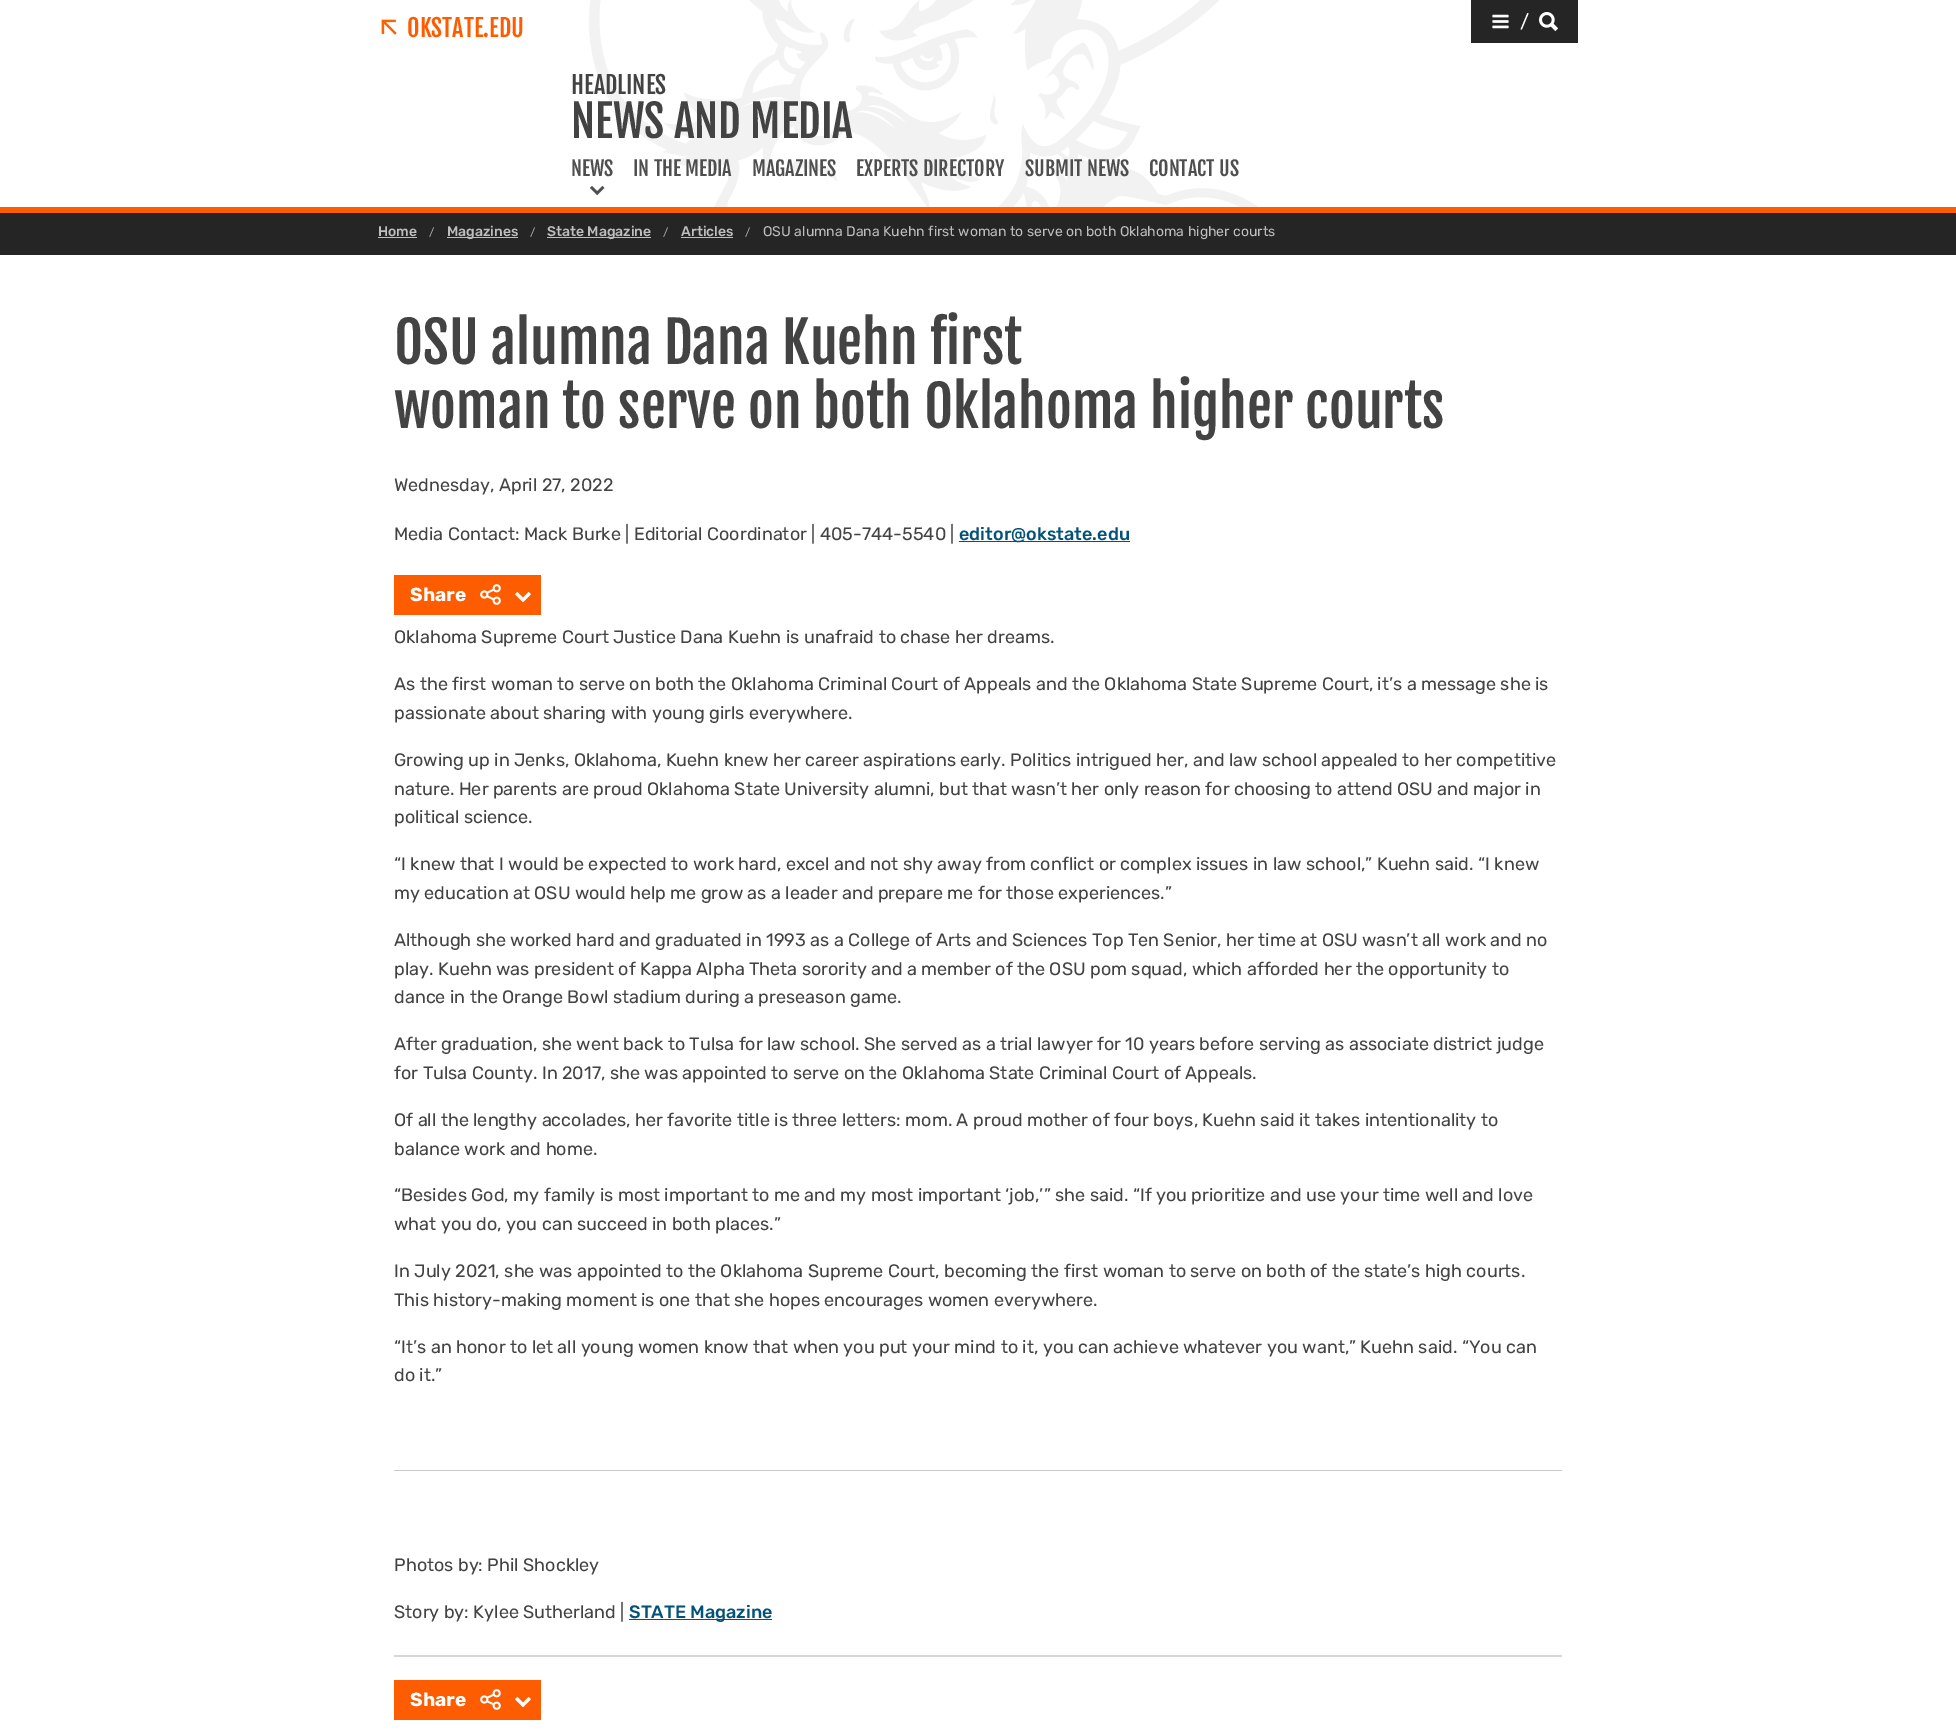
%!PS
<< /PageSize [1956 1731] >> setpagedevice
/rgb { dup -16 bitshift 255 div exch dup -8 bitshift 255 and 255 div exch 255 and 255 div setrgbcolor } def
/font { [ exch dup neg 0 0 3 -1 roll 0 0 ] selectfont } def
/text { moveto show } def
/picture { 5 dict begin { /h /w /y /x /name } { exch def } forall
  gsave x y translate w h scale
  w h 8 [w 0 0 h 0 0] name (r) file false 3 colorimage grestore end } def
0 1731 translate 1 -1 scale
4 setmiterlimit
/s1 { /FjallaOne-Regular 24 font 16#FE5C00 rgb } def
/s2 { /Rubik-Regular 19 font 16#FFFFFF rgb } def
/s3 { /FjallaOne-Regular 24 font 16#434343 rgb } def
/s4 { /FjallaOne-Regular 44 font 16#434343 rgb } def
/s5 { /FjallaOne-Regular 20 font 16#4F4F4F rgb } def
/s6 { /Rubik-Medium 14 font 16#BEBEBE rgb } def
/s7 { /Rubik-Regular 11 font 16#AAAAAA rgb } def
/s8 { /Rubik-Regular 14 font 16#BEBEBE rgb } def
/s9 { /FjallaOne-Regular 56 font 16#434343 rgb } def
/s10 { /Rubik-Regular 18 font 16#434343 rgb } def
/s11 { /Rubik-Medium 18 font 16#02527A rgb } def
/s12 { /Rubik-Bold 19 font 16#FFFFFF rgb } def
16#FFFFFF rgb
0 0 1956 1731 rectfill
16#FE5C00 rgb
0 207 1956 6 rectfill
(pic1.raw) 589 0 669 207 picture
(pic2.raw) 381 19 16 16 picture
s1
(OKSTATE.EDU) 407 37 text
16#252525 rgb
1471 0 107 43 rectfill
(pic3.raw) 1492 14 17 15 picture
s2
(/) 1520 28 text
(pic4.raw) 1539 12 19 19 picture
s3
(HEADLINES) 571 94 text
s4
(NEWS AND MEDIA) 571 138 text
s5
(NEWS) 571 176 text
(pic5.raw) 590 186 15 10 picture
(IN THE MEDIA) 633 176 text
(MAGAZINES) 752 176 text
(EXPERTS DIRECTORY) 856 176 text
(SUBMIT NEWS) 1025 176 text
(CONTACT US) 1149 176 text
16#252525 rgb
0 213 1956 42 rectfill
s6
(Home) 378 236 text
378 237 39 1 rectfill
s7
(/) 429 236 text
16#BEBEBE rgb
447 237 71 1 rectfill
s6
(Magazines) 447 236 text
s7
(/) 530 236 text
16#BEBEBE rgb
547 237 104 1 rectfill
s6
(State Magazine) 547 236 text
s7
(/) 663 236 text
s6
(Articles) 681 236 text
681 237 52 1 rectfill
s7
(/) 745 236 text
s8
(OSU alumna Dana Kuehn first woman to serve on both Oklahoma higher courts) 763 236 text
s9
(OSU alumna Dana Kuehn first) 394 364 text
(woman to serve on both Oklahoma higher courts) 394 428 text
s10
(Wednesday, April 27, 2022) 394 491 text
(Media Contact: Mack Burke | Editorial Coordinator | 405-744-5540 |) 394 540 text
16#02527A rgb
959 541 171 1 rectfill
s11
(editor@okstate.edu) 959 540 text
16#FE5C00 rgb
394 575 147 40 rectfill
s12
(Share) 410 601 text
(pic6.raw) 480 584 21 21 picture
(pic7.raw) 515 592 16 10 picture
s10
(Oklahoma Supreme Court Justice Dana Kuehn is unafraid to chase her dreams.) 394 643 text
(As the first woman to serve on both the Oklahoma Criminal Court of Appeals and the Oklahoma State Supreme Court, it’s a message she is) 394 690 text
(passionate about sharing with young girls everywhere.) 394 719 text
(Growing up in Jenks, Oklahoma, Kuehn knew her career aspirations early. Politics intrigued her, and law school appealed to her competitive) 394 766 text
(nature. Her parents are proud Oklahoma State University alumni, but that wasn’t her only reason for choosing to attend OSU and major in) 394 795 text
(political science.) 394 823 text
(“I knew that I would be expected to work hard, excel and not shy away from conflict or complex issues in law school,” Kuehn said. “I knew) 394 870 text
(my education at OSU would help me grow as a leader and prepare me for those experiences.”) 394 899 text
(Although she worked hard and graduated in 1993 as a College of Arts and Sciences Top Ten Senior, her time at OSU wasn’t all work and no) 394 946 text
(play. Kuehn was president of Kappa Alpha Theta sorority and a member of the OSU pom squad, which afforded her the opportunity to) 394 975 text
(dance in the Orange Bowl stadium during a preseason game.) 394 1003 text
(After graduation, she went back to Tulsa for law school. She served as a trial lawyer for 10 years before serving as associate district judge) 394 1050 text
(for Tulsa County. In 2017, she was appointed to serve on the Oklahoma State Criminal Court of Appeals.) 394 1079 text
(Of all the lengthy accolades, her favorite title is three letters: mom. A proud mother of four boys, Kuehn said it takes intentionality to) 394 1126 text
(balance work and home.) 394 1155 text
(“Besides God, my family is most important to me and my most important ‘job,’” she said. “If you prioritize and use your time well and love) 394 1201 text
(what you do, you can succeed in both places.”) 394 1230 text
(In July 2021, she was appointed to the Oklahoma Supreme Court, becoming the first woman to serve on both of the state’s high courts.) 394 1277 text
(This history-making moment is one that she hopes encourages women everywhere.) 394 1306 text
(“It’s an honor to let all young women know that when you put your mind to it, you can achieve whatever you want,” Kuehn said. “You can) 394 1353 text
(do it.”) 394 1381 text
16#C9C9C9 rgb
394 1470 1168 1 rectfill
s10
(Photos by: Phil Shockley) 394 1571 text
(Story by: Kylee Sutherland |) 394 1618 text
16#02527A rgb
629 1619 143 1 rectfill
s11
(STATE Magazine) 629 1618 text
16#D8D8D8 rgb
394 1655 1168 2 rectfill
16#FE5C00 rgb
394 1680 147 40 rectfill
s12
(Share) 410 1706 text
(pic6.raw) 480 1689 21 21 picture
(pic7.raw) 515 1697 16 10 picture
showpage
